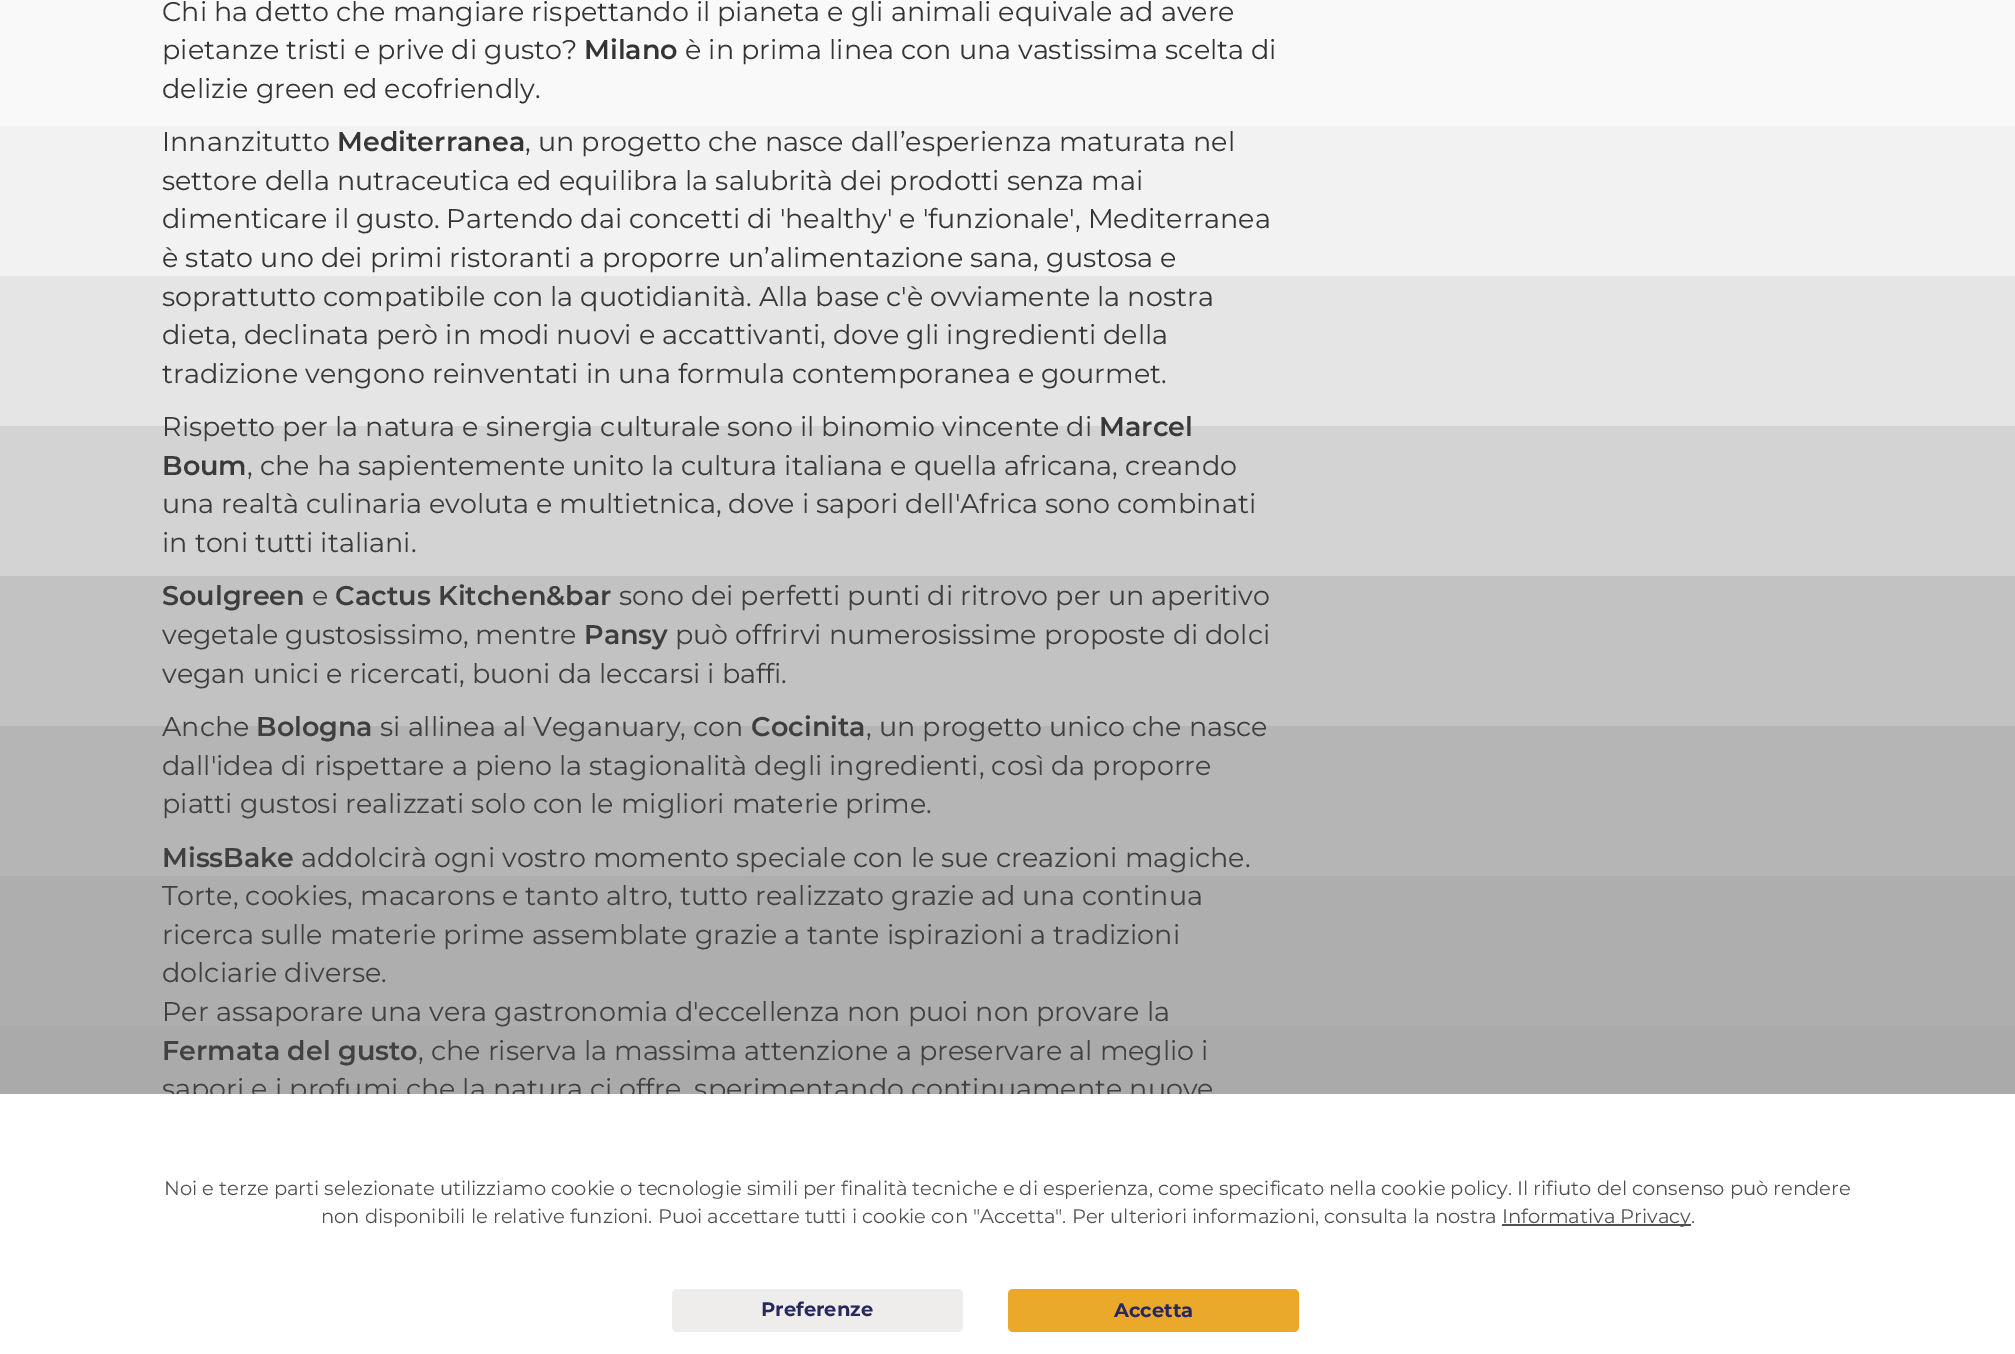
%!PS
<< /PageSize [2015 1354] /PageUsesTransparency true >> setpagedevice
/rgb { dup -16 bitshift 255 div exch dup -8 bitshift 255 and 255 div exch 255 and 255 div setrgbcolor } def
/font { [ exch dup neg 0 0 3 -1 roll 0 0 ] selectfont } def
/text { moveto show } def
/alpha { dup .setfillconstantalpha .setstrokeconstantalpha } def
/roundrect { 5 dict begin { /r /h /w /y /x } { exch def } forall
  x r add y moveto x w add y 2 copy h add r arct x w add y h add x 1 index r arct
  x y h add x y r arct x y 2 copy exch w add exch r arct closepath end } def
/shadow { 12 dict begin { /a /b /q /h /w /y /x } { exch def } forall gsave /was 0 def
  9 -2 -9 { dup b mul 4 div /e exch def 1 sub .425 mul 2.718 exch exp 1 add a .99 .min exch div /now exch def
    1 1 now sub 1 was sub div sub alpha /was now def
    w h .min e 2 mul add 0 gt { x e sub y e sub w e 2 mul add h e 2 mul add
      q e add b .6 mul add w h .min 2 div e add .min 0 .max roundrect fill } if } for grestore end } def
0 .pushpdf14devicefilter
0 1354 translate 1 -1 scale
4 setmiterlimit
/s1 { /Montserrat-Regular 27 font 16#333333 rgb } def
/s2 { /Montserrat-SemiBold 27 font 16#333333 rgb } def
/s3 { /Montserrat-Regular 19.5 font 16#505050 rgb } def
/s4 { /Montserrat-Bold 19.5 font 16#272860 rgb } def
16#FFFFFF rgb
0 0 2015 1354 rectfill
s1
(Chi ha detto che mangiare rispettando il pianeta e gli animali equivale ad avere) 162 21 text
(pietanze tristi e prive di gusto?) 162 59 text
s2
(Milano) 584 59 text
s1
(è in prima linea con una vastissima scelta di) 685 59 text
(delizie green ed ecofriendly.) 162 98 text
(Innanzitutto) 162 151 text
s2
(Mediterranea) 337 151 text
s1
(, un progetto che nasce dall’esperienza maturata nel) 525 151 text
(settore della nutraceutica ed equilibra la salubrità dei prodotti senza mai) 162 190 text
(dimenticare il gusto. Partendo dai concetti di 'healthy' e 'funzionale', Mediterranea) 162 228 text
(è stato uno dei primi ristoranti a proporre un’alimentazione sana, gustosa e) 162 267 text
(soprattutto compatibile con la quotidianità. Alla base c'è ovviamente la nostra) 162 306 text
(dieta, declinata però in modi nuovi e accattivanti, dove gli ingredienti della) 162 344 text
(tradizione vengono reinventati in una formula contemporanea e gourmet.) 162 383 text
(Rispetto per la natura e sinergia culturale sono il binomio vincente di) 162 436 text
s2
(Marcel) 1099 436 text
(Boum) 162 475 text
s1
(, che ha sapientemente unito la cultura italiana e quella africana, creando) 247 475 text
(una realtà culinaria evoluta e multietnica, dove i sapori dell'Africa sono combinati) 162 513 text
(in toni tutti italiani.) 162 552 text
s2
(Soulgreen) 162 605 text
s1
(e) 312 605 text
s2
(Cactus Kitchen&bar) 335 605 text
s1
(sono dei perfetti punti di ritrovo per un aperitivo) 619 605 text
(vegetale gustosissimo, mentre) 162 644 text
s2
(Pansy) 584 644 text
s1
(può offrirvi numerosissime proposte di dolci) 675 644 text
(vegan unici e ricercati, buoni da leccarsi i baffi.) 162 683 text
(Anche) 162 736 text
s2
(Bologna) 256 736 text
s1
(si allinea al Veganuary, con) 380 736 text
s2
(Cocinita) 751 736 text
s1
(, un progetto unico che nasce) 866 736 text
(dall'idea di rispettare a pieno la stagionalità degli ingredienti, così da proporre) 162 775 text
(piatti gustosi realizzati solo con le migliori materie prime.) 162 813 text
s2
(MissBake) 162 867 text
s1
(addolcirà ogni vostro momento speciale con le sue creazioni magiche.) 301 867 text
(Torte, cookies, macarons e tanto altro, tutto realizzato grazie ad una continua) 162 905 text
(ricerca sulle materie prime assemblate grazie a tante ispirazioni a tradizioni) 162 944 text
(dolciarie diverse.) 162 982 text
(Per assaporare una vera gastronomia d'eccellenza non puoi non provare la) 162 1021 text
s2
(Fermata del gusto) 162 1060 text
s1
(, che riserva la massima attenzione a preservare al meglio i) 418 1060 text
(sapori e i profumi che la natura ci offre, sperimentando continuamente nuove) 162 1098 text
16#505050 rgb
-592 501 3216 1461 0 300 0.5 shadow
16#FFFFFF rgb
0 1094 2015 260 rectfill
s3
(Noi e terze parti selezionate utilizziamo cookie o tecnologie simili per finalità tecniche e di esperienza, come specificato nella cookie policy. Il rifiuto del consenso può rendere) 164 1195 text
(non disponibili le relative funzioni. Puoi accettare tutti i cookie con "Accetta". Per ulteriori informazioni, consulta la nostra) 321 1223 text
1502 1224 189 2 rectfill
(Informativa Privacy.) 1502 1223 text
16#EEEDEC rgb
672 1289 291 43 5 roundrect fill
s4
(Preferenze) 761 1316 text
16#EBA92B rgb
1008 1289 291 43 5 roundrect fill
s4
(Accetta) 1114 1317 text
.poppdf14devicefilter showpage
